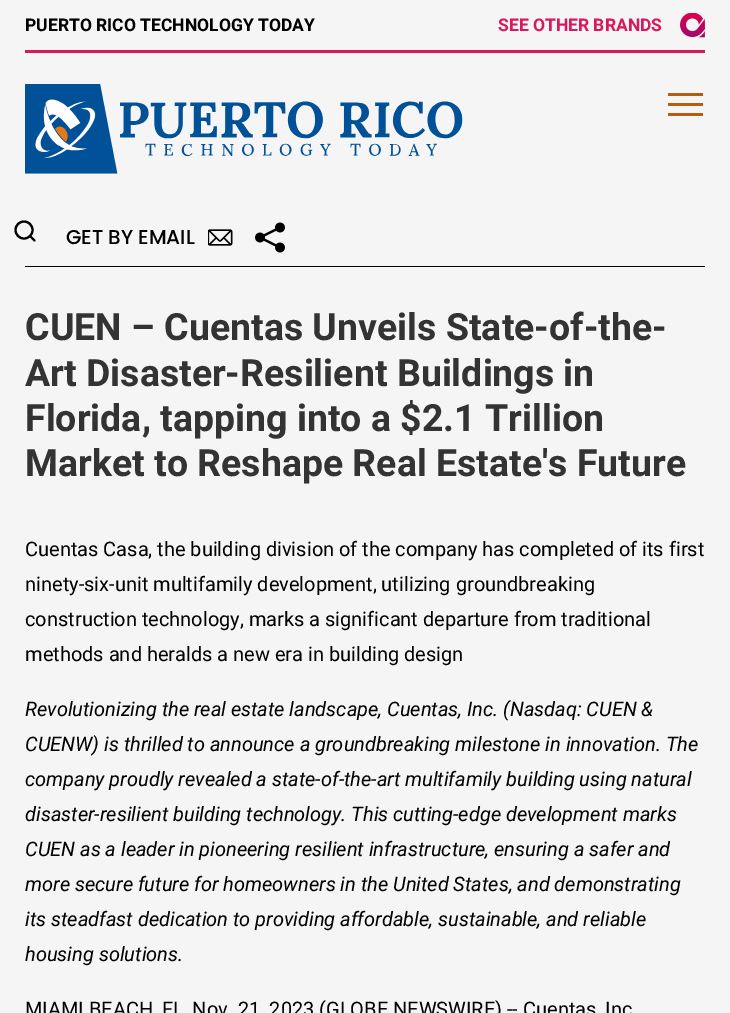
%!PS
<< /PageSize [730 1013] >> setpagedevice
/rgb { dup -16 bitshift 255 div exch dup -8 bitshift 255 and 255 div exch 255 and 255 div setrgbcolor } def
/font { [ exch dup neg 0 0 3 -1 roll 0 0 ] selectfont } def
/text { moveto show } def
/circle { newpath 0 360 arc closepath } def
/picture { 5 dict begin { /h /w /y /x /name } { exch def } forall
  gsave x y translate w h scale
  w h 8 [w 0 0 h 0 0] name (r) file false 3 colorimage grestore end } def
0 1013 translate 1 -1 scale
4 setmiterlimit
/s1 { /Roboto-Bold 17.5 font 16#000000 rgb } def
/s2 { /Roboto-Bold 17.5 font 16#D8195E rgb } def
/s3 { /Poppins-Medium 20 font 16#000000 rgb } def
/s4 { /Roboto-Bold 37.5 font 16#333333 rgb } def
/s5 { /Roboto-Regular 20 font 16#000000 rgb } def
/s6 { /Roboto-Italic 20 font 16#000000 rgb } def
16#F5F5F5 rgb
0 0 730 1013 rectfill
16#D8195E rgb
25 50 680 3 rectfill
s1
(PUERTO RICO TECHNOLOGY TODAY) 25 31 text
s2
(SEE OTHER BRANDS) 498 31 text
(pic1.raw) 680 13 25 25 picture
16#000000 rgb
25 266 680 1 rectfill
(pic2.raw) 25 84 438 90 picture
16#B55E12 rgb
668 93 35 3 rectfill
668 103 35 3 rectfill
668 113 35 3 rectfill
16#000000 rgb
2.1 setlinewidth
24 230 8.5 circle stroke
1 setlinecap
1 setlinejoin
34.5 240.5 moveto 30 236 lineto stroke
s3
(GET BY EMAIL) 66 244 text
(pic3.raw) 208 229 25 17 picture
(pic4.raw) 255 222 30 31 picture
s4
(CUEN – Cuentas Unveils State-of-the-) 25 340 text
(Art Disaster-Resilient Buildings in) 25 386 text
(Florida, tapping into a $2.1 Trillion) 25 431 text
(Market to Reshape Real Estate's Future) 25 476 text
s5
(Cuentas Casa, the building division of the company has completed of its first) 25 556 text
(ninety-six-unit multifamily development, utilizing groundbreaking) 25 591 text
(construction technology, marks a significant departure from traditional) 25 626 text
(methods and heralds a new era in building design) 25 661 text
s6
(Revolutionizing the real estate landscape, Cuentas, Inc. \(Nasdaq: CUEN &) 25 716 text
(CUENW\) is thrilled to announce a groundbreaking milestone in innovation. The) 25 751 text
(company proudly revealed a state-of-the-art multifamily building using natural) 25 786 text
(disaster-resilient building technology. This cutting-edge development marks) 25 821 text
(CUEN as a leader in pioneering resilient infrastructure, ensuring a safer and) 25 856 text
(more secure future for homeowners in the United States, and demonstrating) 25 891 text
(its steadfast dedication to providing affordable, sustainable, and reliable) 25 926 text
(housing solutions.) 25 961 text
s5
(MIAMI BEACH, FL, Nov) 25 1016 text
(21, 2023 \(GLOBE NEWSWIRE\) -- Cuentas, Inc) 238 1016 text
showpage
